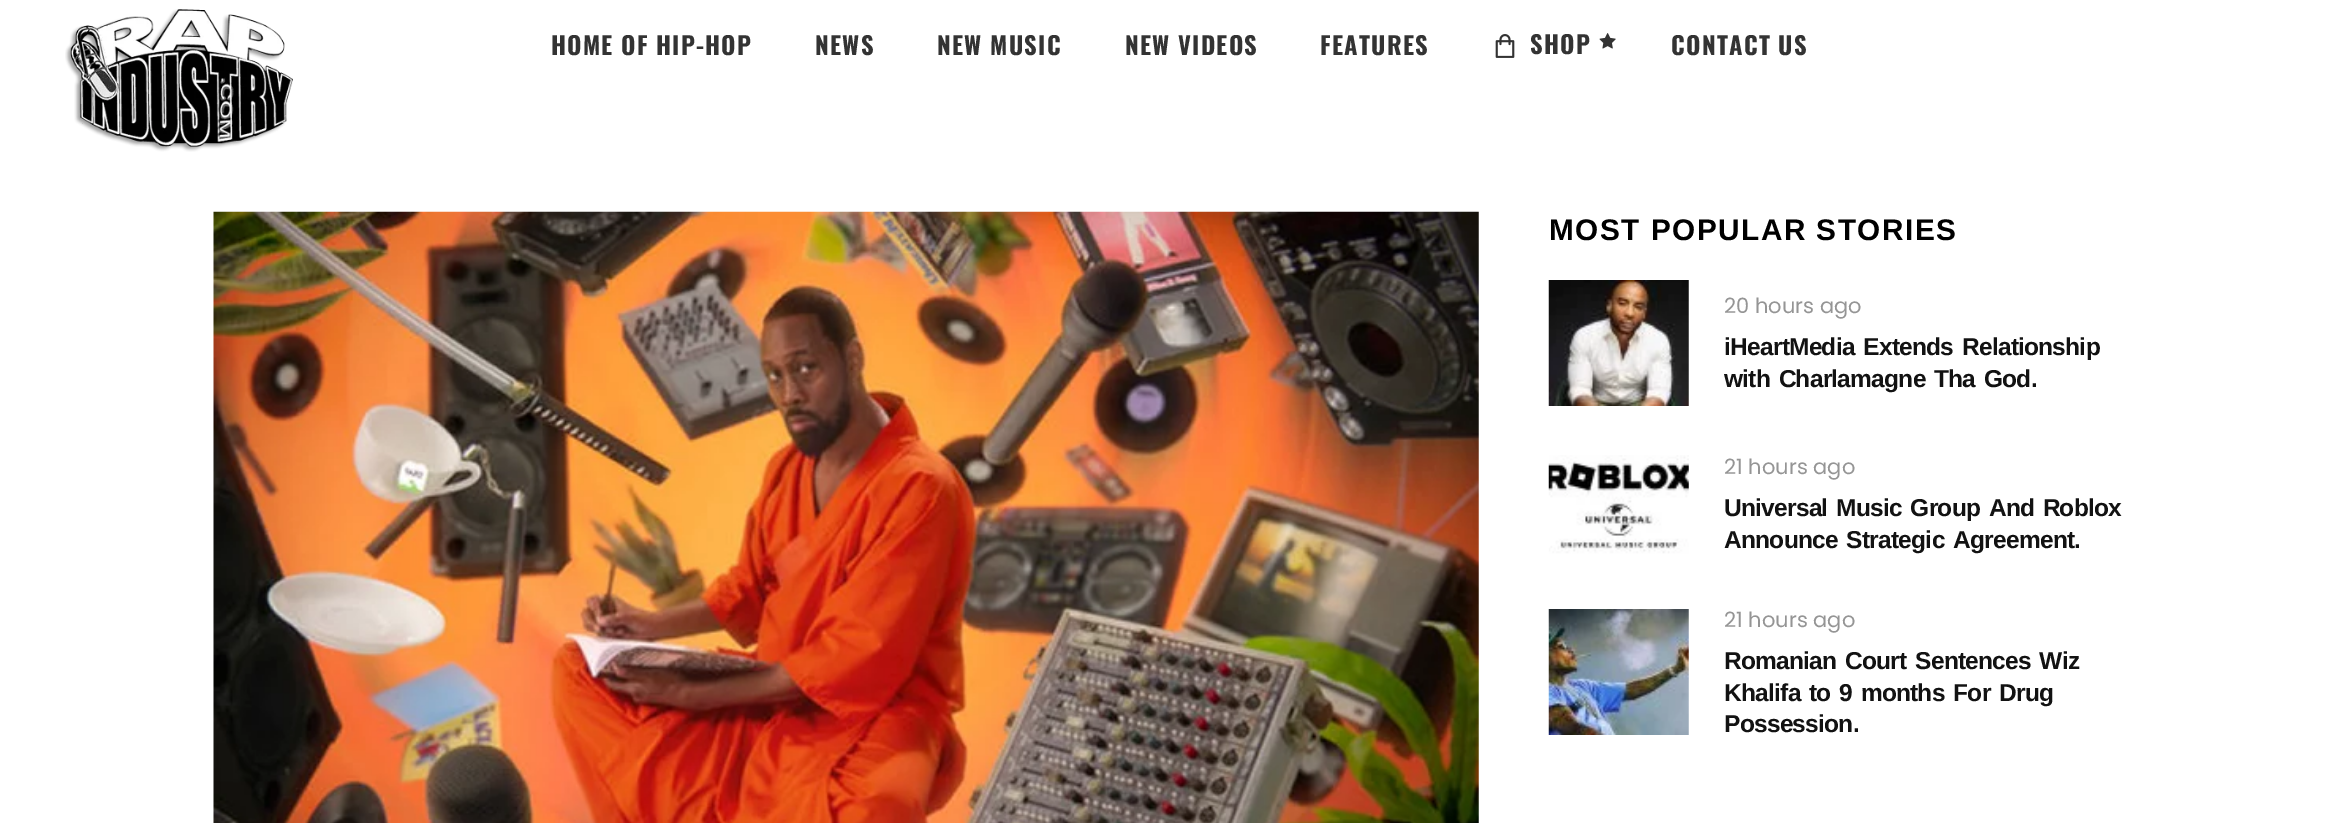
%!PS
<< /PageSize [2352 823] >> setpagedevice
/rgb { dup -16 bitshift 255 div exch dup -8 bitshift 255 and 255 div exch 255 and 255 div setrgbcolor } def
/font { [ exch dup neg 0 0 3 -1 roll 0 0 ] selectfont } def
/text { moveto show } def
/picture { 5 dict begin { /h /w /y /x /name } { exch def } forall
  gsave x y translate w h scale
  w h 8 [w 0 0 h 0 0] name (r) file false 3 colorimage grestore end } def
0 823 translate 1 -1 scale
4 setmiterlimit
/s1 { /Poppins-Regular 21 font 16#959595 rgb } def
16#FFFFFF rgb
0 0 2352 823 rectfill
(pic1.raw) 65 9 228 143 picture
/Oswald-Bold 24.5 font
16#333333 rgb
551 55 moveto 1.25 0 (HOME OF HIP-HOP) ashow
815 55 moveto 1.25 0 (NEWS) ashow
937 55 moveto 1.25 0 (NEW MUSIC) ashow
1125 55 moveto 1.25 0 (NEW VIDEOS) ashow
1320 55 moveto 1.25 0 (FEATURES) ashow
(pic2.raw) 1495 34 20 24 picture
1530 54 moveto 1.25 0 (SHOP) ashow
(pic3.raw) 1599 33 17 16 picture
1671 55 moveto 1.25 0 (CONTACT US) ashow
(pic4.raw) 213 211 1266 612 picture
/LiberationSans-Bold 29.75 font
16#000000 rgb
1549 240 moveto 1.5 0 (MOST POPULAR STORIES) ashow
(pic5.raw) 1548 280 141 126 picture
s1
(20 hours ago) 1724 313 text
/LiberationSans-Bold 24.5 font
16#121212 rgb
1724 355 moveto 2.5 0 32 -0.75 0 (iHeartMedia Extends Relationship) awidthshow
1724 387 moveto 2.5 0 32 -0.75 0 (with Charlamagne Tha God.) awidthshow
(pic6.raw) 1548 455 141 99 picture
s1
(21 hours ago) 1724 474 text
/LiberationSans-Bold 24.5 font
16#121212 rgb
1724 516 moveto 2.5 0 32 -0.75 0 (Universal Music Group And Roblox) awidthshow
1724 548 moveto 2.5 0 32 -0.75 0 (Announce Strategic Agreement.) awidthshow
(pic7.raw) 1548 609 141 126 picture
s1
(21 hours ago) 1724 627 text
/LiberationSans-Bold 24.5 font
16#121212 rgb
1724 669 moveto 2.5 0 32 -0.75 0 (Romanian Court Sentences Wiz) awidthshow
1724 701 moveto 2.5 0 32 -0.75 0 (Khalifa to 9 months For Drug) awidthshow
1724 732 moveto -0.75 0 (Possession.) ashow
showpage
